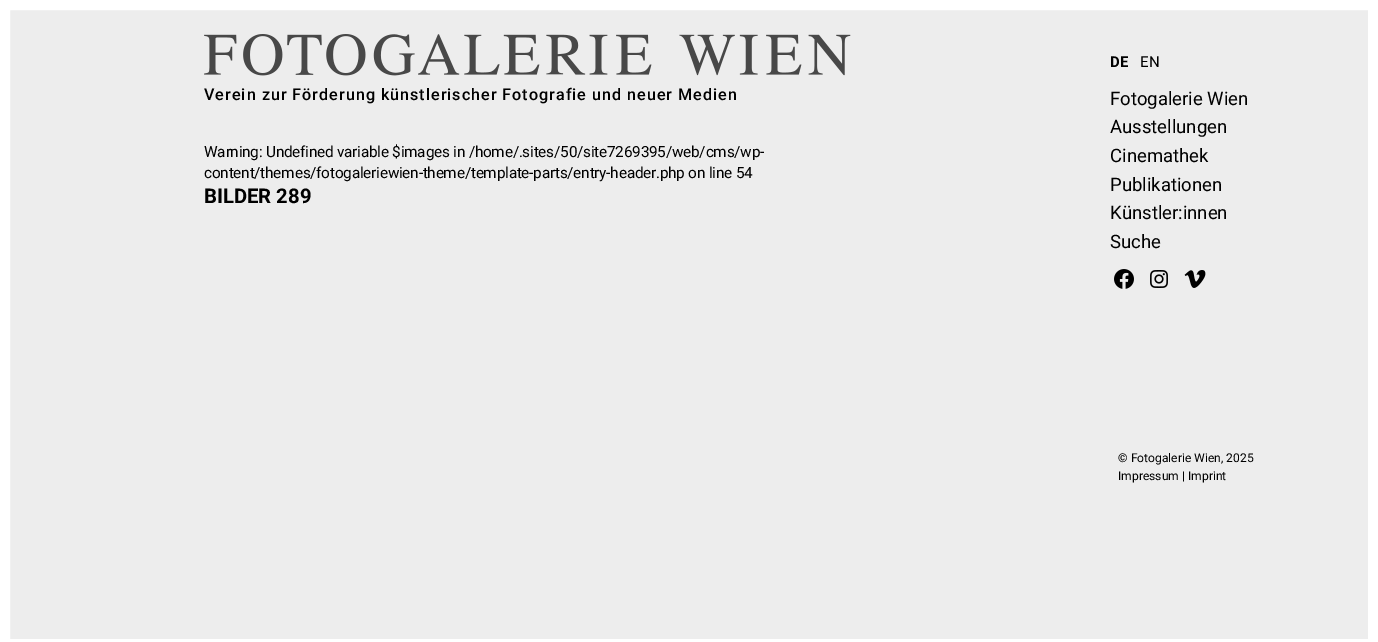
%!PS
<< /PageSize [1378 642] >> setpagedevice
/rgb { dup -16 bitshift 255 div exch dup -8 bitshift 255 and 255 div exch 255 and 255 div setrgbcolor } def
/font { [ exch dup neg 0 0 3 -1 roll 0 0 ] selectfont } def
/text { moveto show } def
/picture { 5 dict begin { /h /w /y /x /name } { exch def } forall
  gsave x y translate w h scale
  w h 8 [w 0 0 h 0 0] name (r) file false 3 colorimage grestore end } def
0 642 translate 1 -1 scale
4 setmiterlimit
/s1 { /Roboto-Bold 15 font 16#000000 rgb } def
/s2 { /Roboto-Regular 15 font 16#000000 rgb } def
/s3 { /Roboto-Regular 18.5 font 16#000000 rgb } def
/s4 { /Roboto-Bold 20.25 font 16#000000 rgb } def
/s5 { /Roboto-Regular 12.1 font 16#000000 rgb } def
16#EDEDED rgb
0 0 1378 642 rectfill
16#FFFFFF rgb
10 setlinewidth
5 5 1368 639 rectstroke
(pic1.raw) 204 34 647 42 picture
/Roboto-Medium 16.15 font
16#000000 rgb
204 100 moveto 1 0 (Verein zur Förderung künstlerischer Fotografie und neuer Medien) ashow
s1
(DE) 1110 67 text
s2
(EN) 1140 67 text
s3
(Fotogalerie Wien) 1110 105 text
(Ausstellungen) 1110 133 text
(Cinemathek) 1110 162 text
(Publikationen) 1110 191 text
(Künstler:innen) 1110 219 text
(Suche) 1110 248 text
(pic2.raw) 1114 269 20 20 picture
(pic3.raw) 1150 270 18 18 picture
(pic4.raw) 1184 270 22 18 picture
/Roboto-Regular 15.35 font
204 157 moveto -0.23 0 (Warning: Undefined variable $images in /home/.sites/50/site7269395/web/cms/wp-) ashow
204 178 moveto -0.23 0 (content/themes/fotogaleriewien-theme/template-parts/entry-header.php on line 54) ashow
s4
(BILDER 289) 204 203 text
s5
(© Fotogalerie Wien, 2025) 1118 462 text
(Impressum | Imprint) 1118 480 text
showpage
